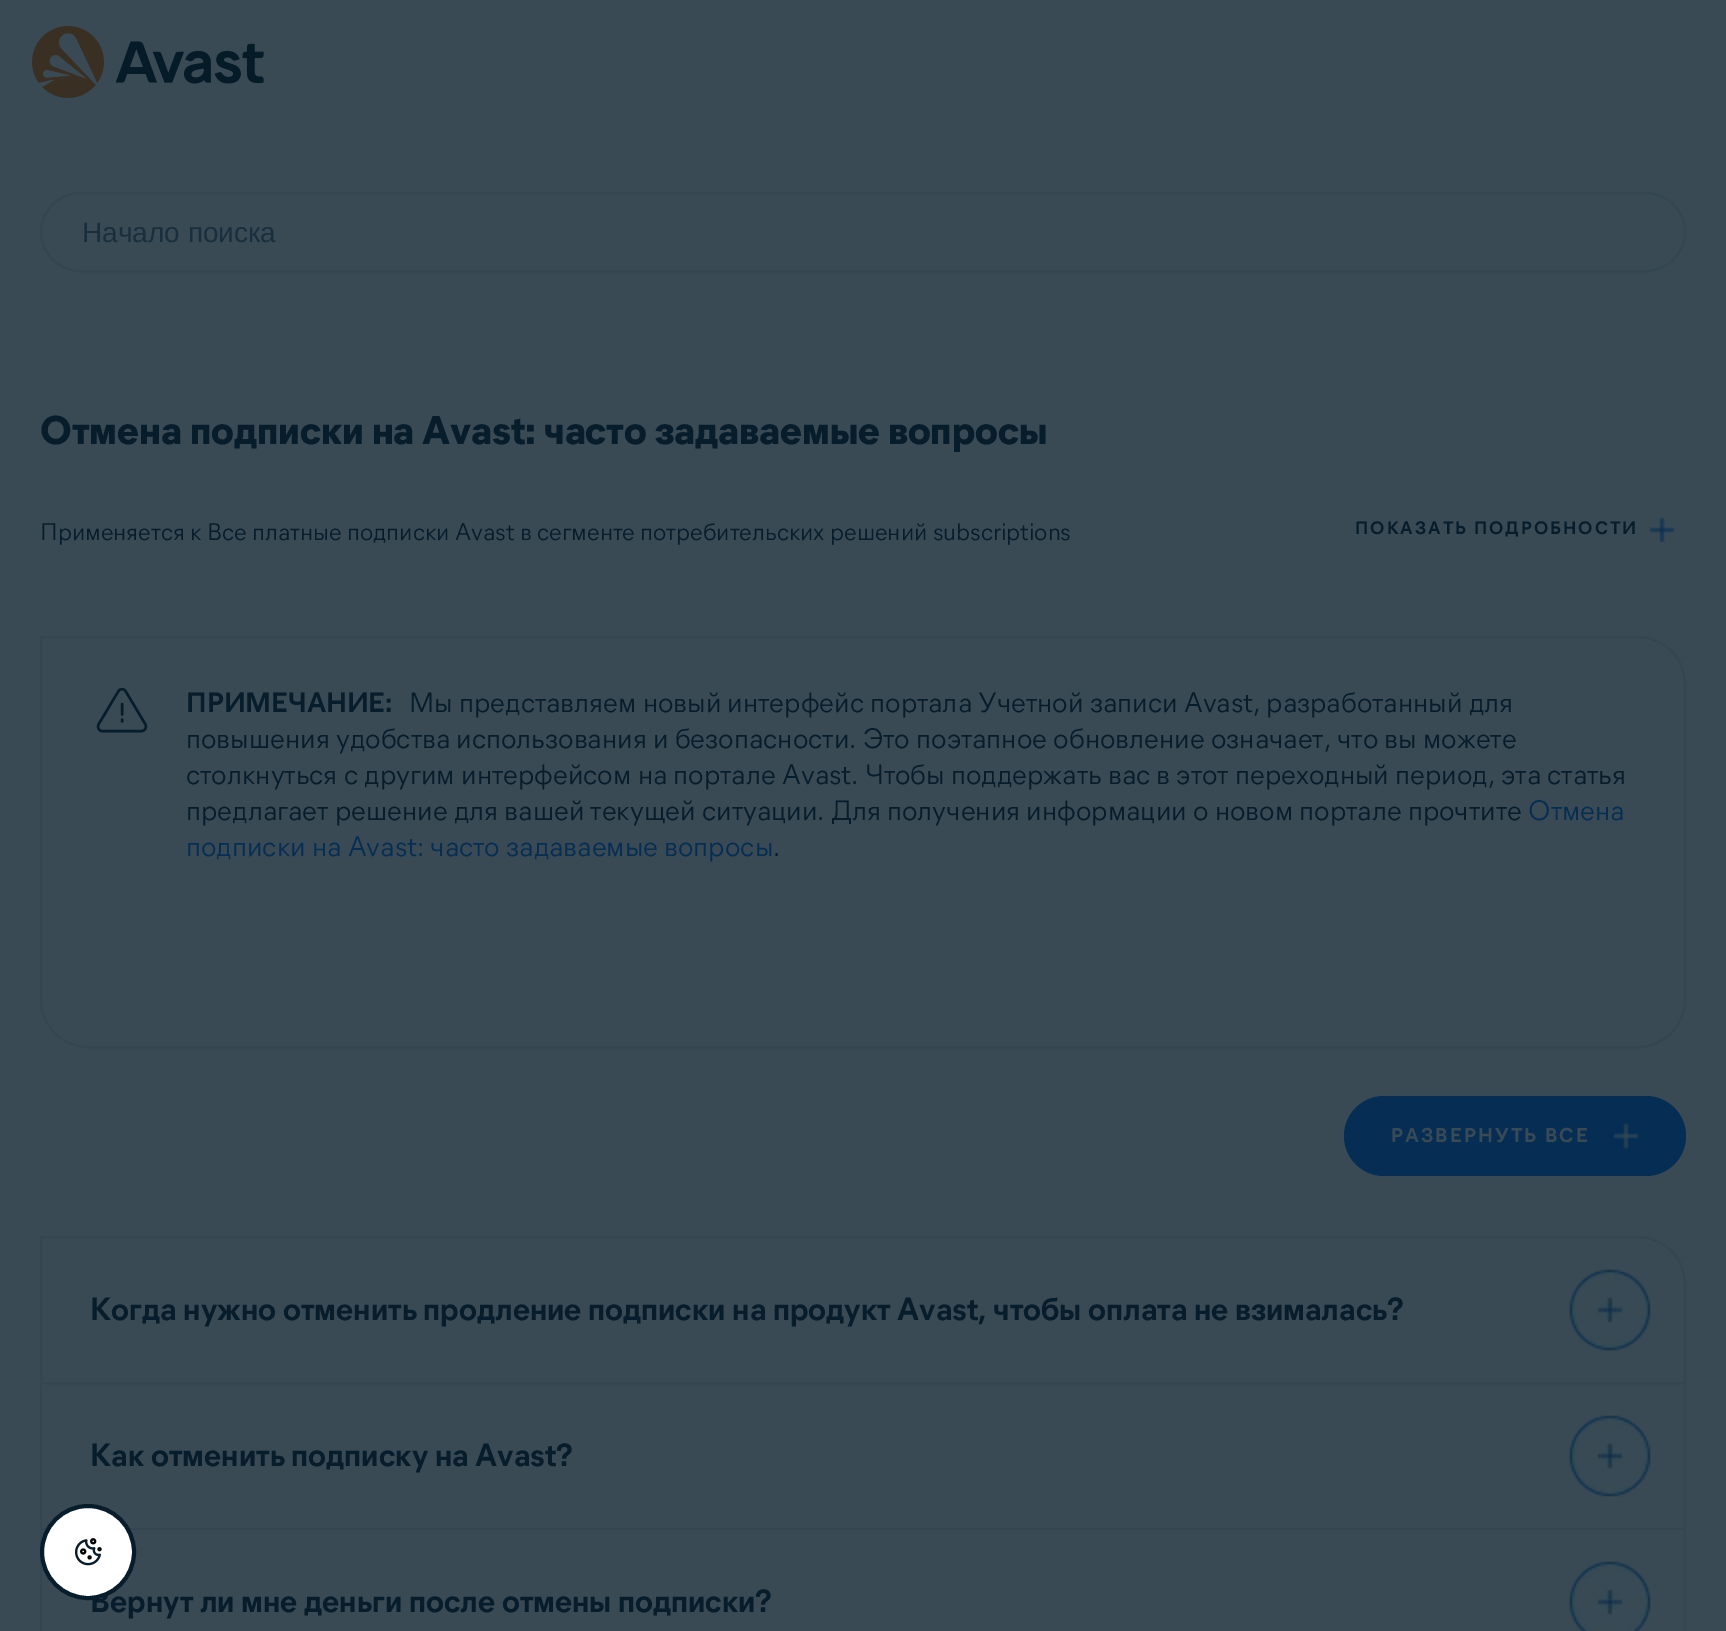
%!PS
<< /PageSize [1726 1631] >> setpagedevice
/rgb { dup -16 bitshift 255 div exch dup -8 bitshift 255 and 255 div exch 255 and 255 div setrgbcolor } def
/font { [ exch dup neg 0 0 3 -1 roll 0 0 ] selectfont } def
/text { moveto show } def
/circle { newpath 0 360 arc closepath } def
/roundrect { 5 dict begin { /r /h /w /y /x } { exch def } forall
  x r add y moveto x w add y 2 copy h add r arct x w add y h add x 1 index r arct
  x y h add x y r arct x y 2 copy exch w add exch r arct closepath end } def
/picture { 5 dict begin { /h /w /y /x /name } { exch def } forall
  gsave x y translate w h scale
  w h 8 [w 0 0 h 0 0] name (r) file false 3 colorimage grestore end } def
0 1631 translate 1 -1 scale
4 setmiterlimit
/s1 { /LiberationSans-Regular 28 font 16#1A2F3D rgb } def
/s2 { /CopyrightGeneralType-Bold 40 font 16#071D2B rgb } def
/s3 { /CopyrightGeneralType-Regular 24 font 16#071D2B rgb } def
/s4 { /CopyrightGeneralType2-Bold 28 font 16#071D2B rgb } def
/s5 { /CopyrightGeneralType-Regular 28 font 16#071D2B rgb } def
/s6 { /CopyrightGeneralType-Regular 28 font 16#062E54 rgb } def
/s7 { /CopyrightGeneralType2-Bold 32 font 16#071D2B rgb } def
16#394A55 rgb
0 0 1726 1631 rectfill
(pic1.raw) 32 26 232 72 picture
16#334651 rgb
2 setlinewidth
41 193 1644 78 39 roundrect stroke
s1
(Начало поиска) 82 242 text
s2
(Отмена подписки на Avast: часто задаваемые вопросы) 40 444 text
s3
(Применяется к Все платные подписки Avast в сегменте потребительских решений subscriptions) 40 540 text
(pic2.raw) 1649 517 26 26 picture
/CopyrightGeneralType2-Bold 18 font
1355 534 moveto 2 0 (ПОКАЗАТЬ ПОДРОБНОСТИ) ashow
2.4 setlinewidth
1 setlinecap
1 setlinejoin
122 719.5 moveto 122 721.5 lineto 122 704 moveto 122 714.5 lineto 98.5 724.5 moveto 118.5 691 lineto 120 688.5 124 688.5 125.5 691 curveto 145.5 724.5 lineto 147 727.5 145 731 141.5 731 curveto 102 731 lineto 99 731 97 727.5 98.5 724.5 curveto closepath stroke
16#334651 rgb
2 setlinewidth
0 setlinecap
0 setlinejoin
41 637 moveto 1638 637 lineto 1664 637 1685 658 1685 684 curveto 1685 1000 lineto 1685 1026 1664 1047 1638 1047 curveto 88 1047 lineto 62 1047 41 1026 41 1000 curveto closepath stroke
s4
(ПРИМЕЧАНИЕ:) 186 712 text
s5
(Мы представляем новый интерфейс портала Учетной записи Avast, разработанный для) 409 712 text
(повышения удобства использования и безопасности. Это поэтапное обновление означает, что вы можете) 186 748 text
(столкнуться с другим интерфейсом на портале Avast. Чтобы поддержать вас в этот переходный период, эта статья) 186 784 text
(предлагает решение для вашей текущей ситуации. Для получения информации о новом портале прочтите) 186 820 text
s6
(Отмена) 1528 820 text
(подписки на Avast: часто задаваемые вопросы) 186 856 text
s5
(.) 773 856 text
16#062E54 rgb
1344 1096 342 80 40 roundrect fill
(pic3.raw) 1613 1123 26 26 picture
/CopyrightGeneralType2-Bold 20 font
16#394A55 rgb
1391 1142 moveto 2 0 (РАЗВЕРНУТЬ ВСЕ) ashow
16#334651 rgb
41 1237 moveto 1638 1237 lineto 1664 1237 1685 1258 1685 1284 curveto 1685 1383 lineto 41 1383 lineto closepath stroke
s7
(Когда нужно отменить продление подписки на продукт Avast, чтобы оплата не взималась?) 90 1320 text
(pic4.raw) 1569 1269 82 82 picture
16#334651 rgb
1684 1384 2 247 rectfill
40 1528 1646 2 rectfill
40 1384 2 247 rectfill
s7
(Как отменить подписку на Avast?) 90 1466 text
(pic4.raw) 1569 1415 82 82 picture
(Вернут ли мне деньги после отмены подписки?) 90 1612 text
(pic5.raw) 1569 1561 82 70 picture
16#FFFFFF rgb
88 1552 46 circle gsave fill grestore
16#071D2B rgb
4 setlinewidth
stroke
(pic6.raw) 75 1538 27 28 picture
showpage
